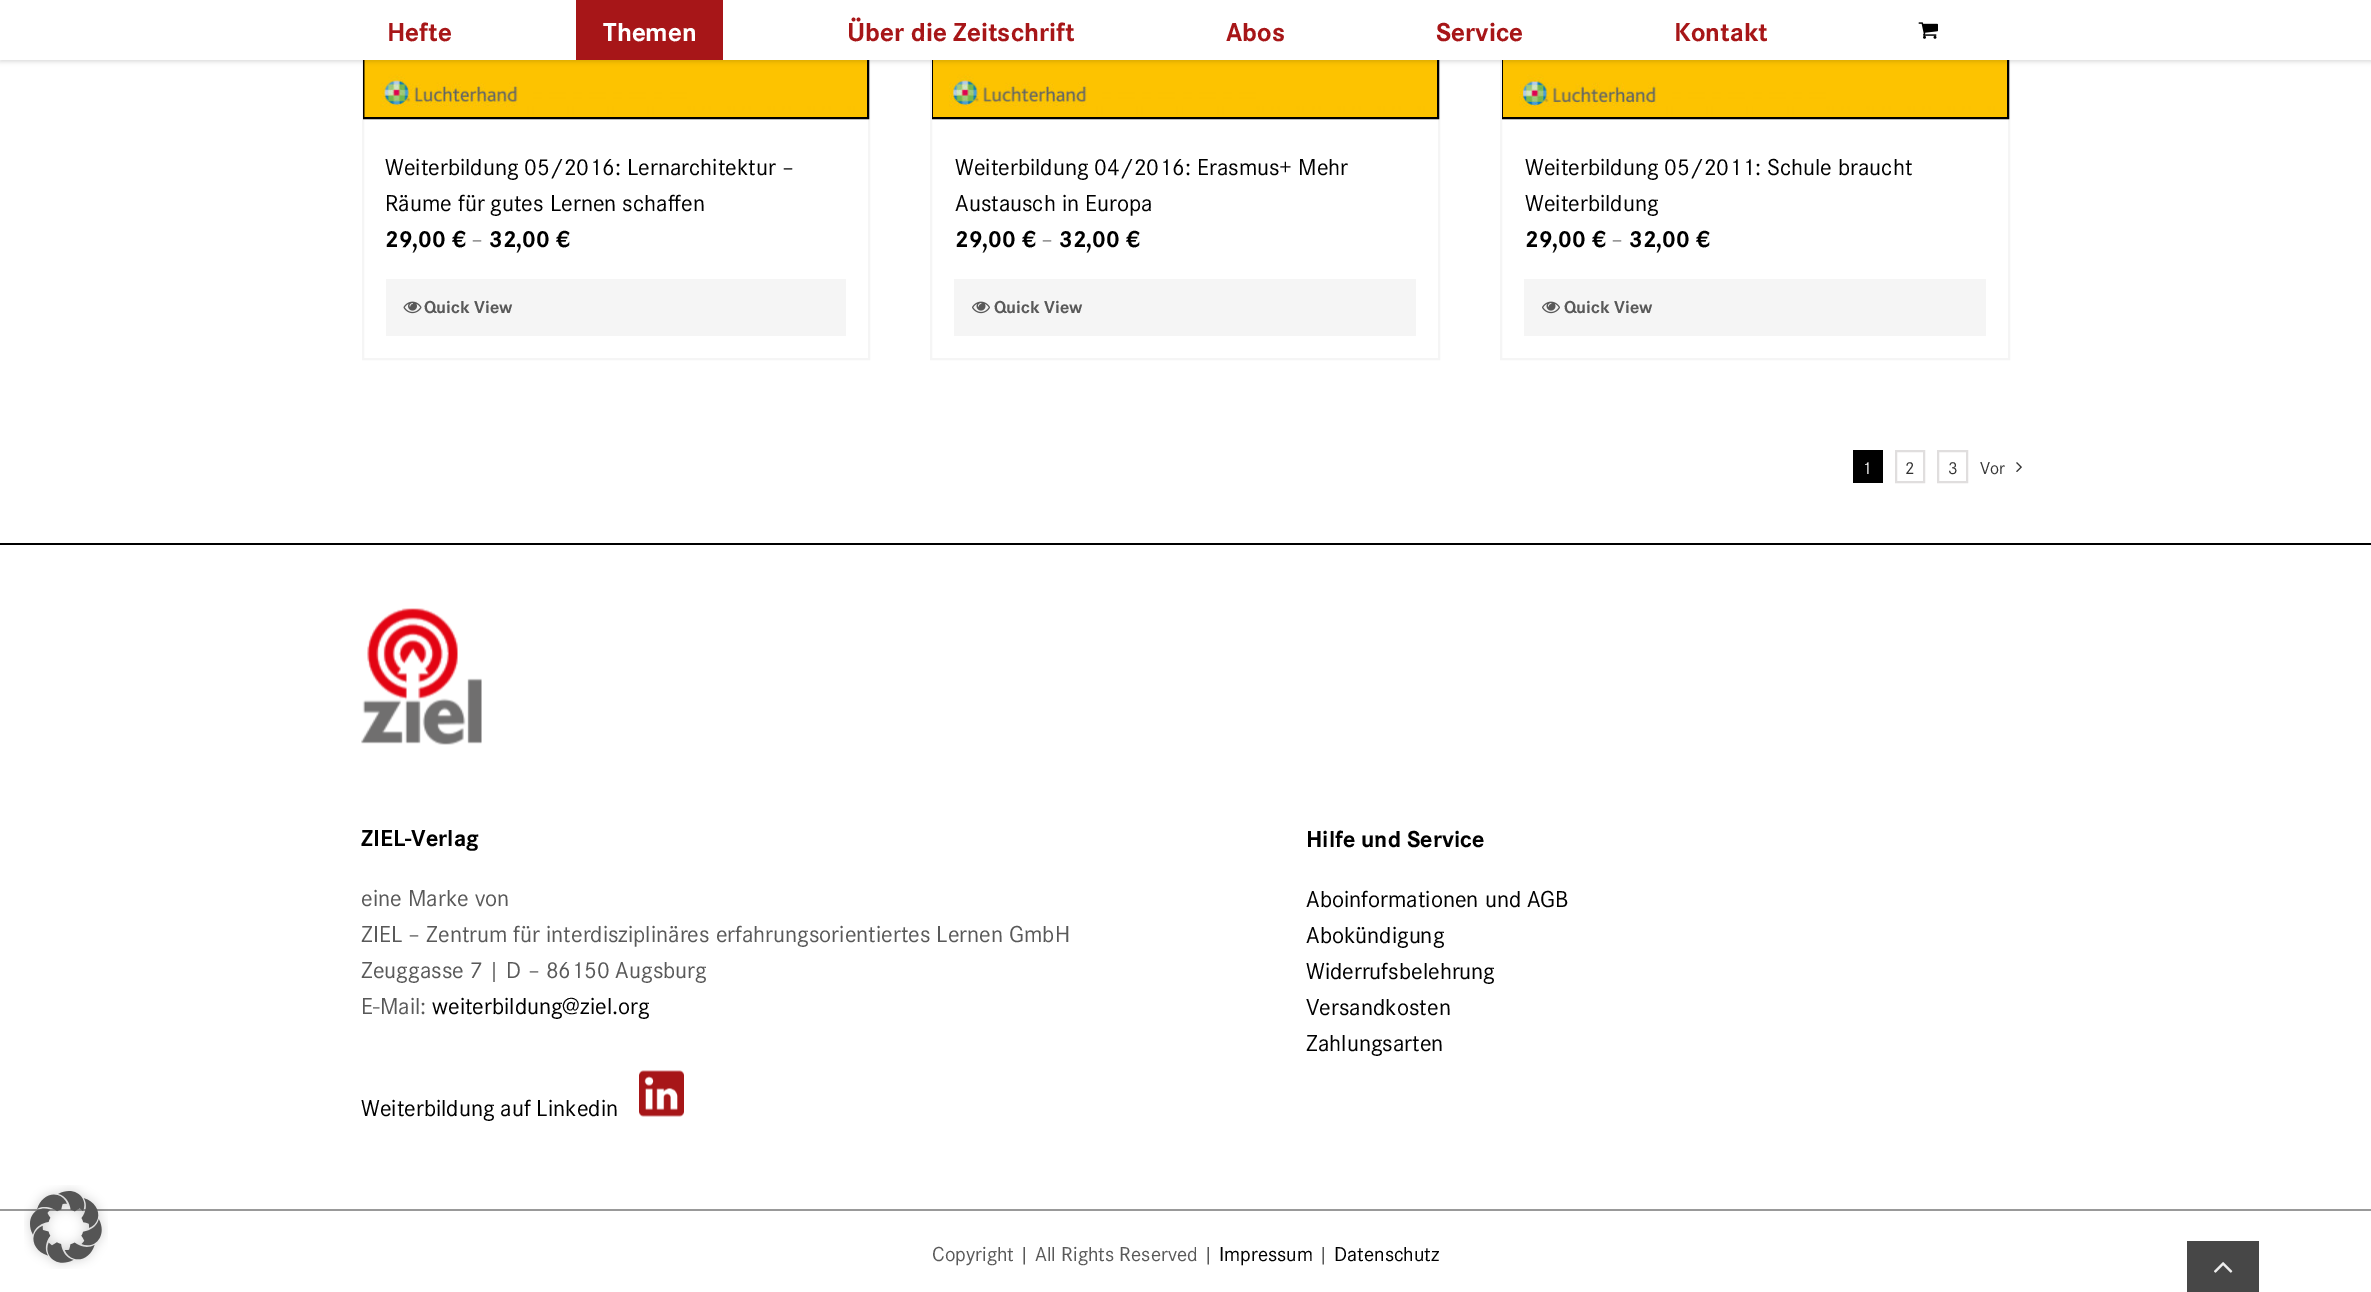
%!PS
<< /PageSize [2371 1292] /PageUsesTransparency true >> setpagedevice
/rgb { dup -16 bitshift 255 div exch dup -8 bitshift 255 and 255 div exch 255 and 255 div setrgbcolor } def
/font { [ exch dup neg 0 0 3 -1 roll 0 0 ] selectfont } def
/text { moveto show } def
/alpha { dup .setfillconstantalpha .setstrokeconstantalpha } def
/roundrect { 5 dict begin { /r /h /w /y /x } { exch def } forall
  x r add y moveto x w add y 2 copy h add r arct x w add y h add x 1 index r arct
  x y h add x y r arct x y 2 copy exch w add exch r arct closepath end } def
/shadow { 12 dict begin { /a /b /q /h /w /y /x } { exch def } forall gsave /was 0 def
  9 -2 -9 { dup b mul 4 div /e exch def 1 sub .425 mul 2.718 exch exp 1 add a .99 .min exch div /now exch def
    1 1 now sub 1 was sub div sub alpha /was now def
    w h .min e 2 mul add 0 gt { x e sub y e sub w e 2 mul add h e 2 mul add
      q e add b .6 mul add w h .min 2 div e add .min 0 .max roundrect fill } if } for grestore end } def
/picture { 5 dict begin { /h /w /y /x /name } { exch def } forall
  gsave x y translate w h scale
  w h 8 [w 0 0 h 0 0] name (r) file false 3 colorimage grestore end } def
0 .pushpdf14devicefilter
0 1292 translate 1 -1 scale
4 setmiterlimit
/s1 { /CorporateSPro-Bold 27 font 16#A71618 rgb } def
/s2 { /CorporateSPro-Bold 27 font 16#FFFFFF rgb } def
/s3 { /CorporateSPro-Regular 24 font 16#000000 rgb } def
/s4 { /CorporateSPro-Bold 24 font 16#000000 rgb } def
/s5 { /CorporateSPro-Regular 24 font 16#747474 rgb } def
/s6 { /CorporateSPro-Bold 18 font 16#595959 rgb } def
/s7 { /CorporateSPro-Regular 18 font 16#FFFFFF rgb } def
/s8 { /CorporateSPro-Regular 18 font 16#333333 rgb } def
/s9 { /CorporateSPro-Regular 24 font 16#595959 rgb } def
/s10 { /CorporateSPro-Regular 21 font 16#595959 rgb } def
/s11 { /CorporateSPro-Regular 21 font 16#000000 rgb } def
16#FFFFFF rgb
0 0 2371 1292 rectfill
16#999999 rgb
0 1209 2371 2 rectfill
(pic1.raw) 24 1185 84 84 picture
16#F5F5F5 rgb
2 setlinewidth
363 -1 506 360 rectstroke
16#000000 rgb
364 -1 504 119 rectstroke
(pic3.raw) 364 60 503 57 picture
16#F5F5F5 rgb
931 -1 508 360 rectstroke
16#000000 rgb
933 -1 505 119 rectstroke
(pic5.raw) 933 60 504 57 picture
16#F5F5F5 rgb
1501 -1 508 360 rectstroke
16#000000 rgb
1503 -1 505 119 rectstroke
(pic7.raw) 1503 60 504 57 picture
0 2 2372 60 0 2 0.12 shadow
16#FFFFFF rgb
0 0 2371 60 rectfill
s1
(Hefte) 387 41 text
576 0 147 60 rectfill
s2
(Themen) 603 41 text
s1
(Über die Zeitschrift) 847 41 text
(Abos) 1226 41 text
(Service) 1436 41 text
(Kontakt) 1674 41 text
(pic2.raw) 1918 22 20 17 picture
s3
(Weiterbildung 05/2016: Lernarchitektur –) 385 175 text
(Räume für gutes Lernen schaffen) 385 211 text
s4
(29,00 €) 385 247 text
s5
(–) 471 247 text
s4
(32,00 €) 489 247 text
16#F5F5F5 rgb
386 279 460 57 rectfill
(pic4.raw) 403 301 19 13 picture
s6
(Quick View) 424 313 text
s3
(Weiterbildung 04/2016: Erasmus+ Mehr) 955 175 text
(Austausch in Europa) 955 211 text
s4
(29,00 €) 955 247 text
s5
(–) 1041 247 text
s4
(32,00 €) 1059 247 text
16#F5F5F5 rgb
954 279 462 57 rectfill
(pic6.raw) 972 301 18 13 picture
s6
(Quick View) 994 313 text
s3
(Weiterbildung 05/2011: Schule braucht) 1525 175 text
(Weiterbildung) 1525 211 text
s4
(29,00 €) 1525 247 text
s5
(–) 1611 247 text
s4
(32,00 €) 1629 247 text
16#F5F5F5 rgb
1524 279 462 57 rectfill
(pic6.raw) 1542 301 18 13 picture
s6
(Quick View) 1564 313 text
16#000000 rgb
1853 450 30 33 rectfill
s7
(1) 1862 474 text
16#E0DEDE rgb
1896 451 28 31 rectstroke
s8
(2) 1905 474 text
16#E0DEDE rgb
1938 451 29 31 rectstroke
s8
(3) 1948 474 text
(Vor) 1980 474 text
(pic8.raw) 2016 462 6 10 picture
16#000000 rgb
0 543 2371 2 rectfill
(pic9.raw) 361 608 121 137 picture
s4
(ZIEL-Verlag) 361 846 text
s9
(eine Marke von) 361 906 text
(ZIEL – Zentrum für interdisziplinäres erfahrungsorientiertes Lernen GmbH) 361 942 text
(Zeuggasse 7 | D – 86150 Augsburg) 361 978 text
(E-Mail:) 361 1014 text
s3
(weiterbildung@ziel.org) 432 1014 text
(Weiterbildung auf Linkedin) 361 1116 text
(pic10.raw) 639 1070 45 47 picture
s4
(Hilfe und Service) 1306 847 text
s3
(Aboinformationen und AGB) 1306 907 text
(Abokündigung) 1306 943 text
(Widerrufsbelehrung) 1306 979 text
(Versandkosten) 1306 1015 text
(Zahlungsarten) 1306 1051 text
s10
(Copyright | All Rights Reserved |) 932 1261 text
s11
(Impressum) 1219 1261 text
s10
(|) 1318 1261 text
s11
(Datenschutz) 1334 1261 text
16#474747 rgb
2187 1241 72 51 rectfill
(pic11.raw) 2214 1262 19 11 picture
.poppdf14devicefilter showpage
